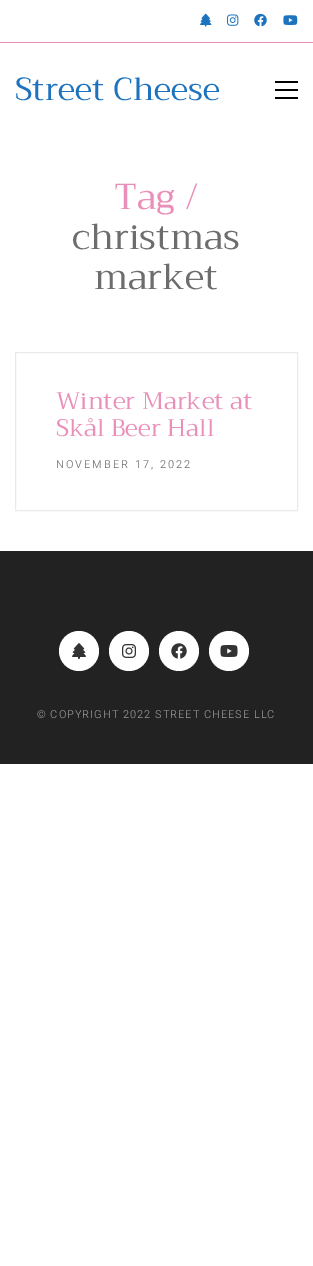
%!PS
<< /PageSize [313 1266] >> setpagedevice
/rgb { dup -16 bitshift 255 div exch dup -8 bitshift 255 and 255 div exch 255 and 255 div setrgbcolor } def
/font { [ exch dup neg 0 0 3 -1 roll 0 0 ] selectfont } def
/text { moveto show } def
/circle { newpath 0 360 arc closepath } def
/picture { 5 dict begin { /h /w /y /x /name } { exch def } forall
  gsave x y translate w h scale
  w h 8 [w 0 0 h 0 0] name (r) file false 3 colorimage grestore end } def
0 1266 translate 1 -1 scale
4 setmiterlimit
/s1 { /Trirong-Regular 32 font 16#1E73BE rgb } def
/s2 { /Trirong-Regular 36 font 16#EA8FB9 rgb } def
/s3 { /Trirong-Regular 36 font 16#6D6D6D rgb } def
/s4 { /Trirong-Regular 24 font 16#EA8FB9 rgb } def
16#FFFFFF rgb
0 0 313 1266 rectfill
16#EA8FB9 rgb
0 42 313 1 rectfill
(pic1.raw) 200 13 12 14 picture
(pic2.raw) 227 14 12 12 picture
(pic3.raw) 254 13 13 14 picture
(pic4.raw) 283 15 15 10 picture
s1
(Street Cheese) 15 100 text
16#000000 rgb
275 81 23 2 rectfill
275 89 23 2 rectfill
275 97 23 2 rectfill
s2
(Tag /) 114 209 text
s3
(christmas) 72 249 text
(market) 94 289 text
16#EAEAEA rgb
15.5 352.5 282 158 rectstroke
s4
(Winter Market at) 56 409 text
(Skål Beer Hall) 56 436 text
/Heebo-Light 11 font
16#6D6D6D rgb
56 468 moveto 2 0 (NOVEMBER 17, 2022) ashow
16#222222 rgb
0 551 313 213 rectfill
16#FFFFFF rgb
79 651 20 circle fill
(pic5.raw) 72 643 14 16 picture
129 651 20 circle fill
(pic6.raw) 122 644 14 14 picture
179 651 20 circle fill
(pic7.raw) 171 643 16 16 picture
229 651 20 circle fill
(pic8.raw) 220 645 18 12 picture
16#999999 rgb
37 718 moveto 1 0 (© COPYRIGHT 2022 STREET CHEESE LLC) ashow
showpage
